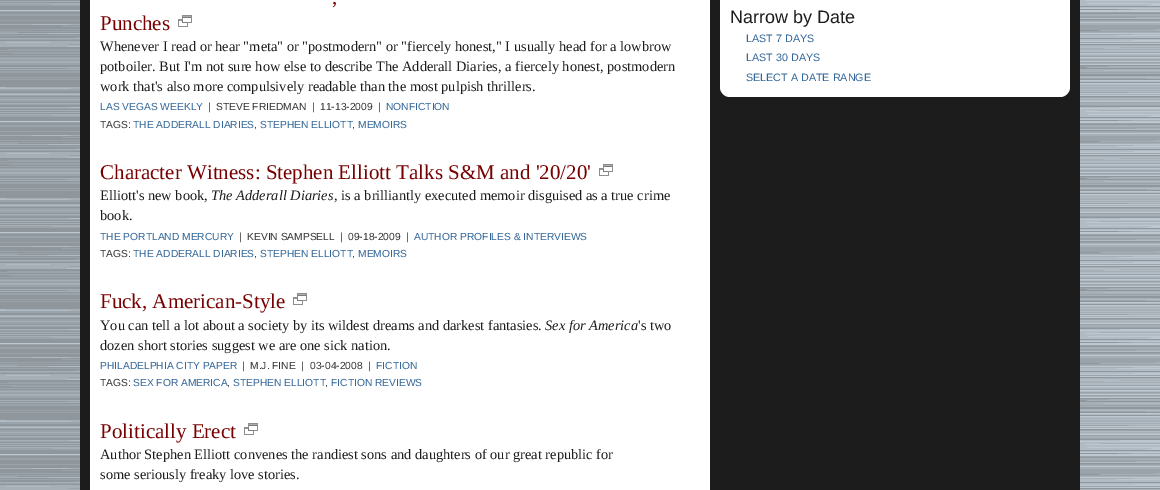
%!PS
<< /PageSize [1160 490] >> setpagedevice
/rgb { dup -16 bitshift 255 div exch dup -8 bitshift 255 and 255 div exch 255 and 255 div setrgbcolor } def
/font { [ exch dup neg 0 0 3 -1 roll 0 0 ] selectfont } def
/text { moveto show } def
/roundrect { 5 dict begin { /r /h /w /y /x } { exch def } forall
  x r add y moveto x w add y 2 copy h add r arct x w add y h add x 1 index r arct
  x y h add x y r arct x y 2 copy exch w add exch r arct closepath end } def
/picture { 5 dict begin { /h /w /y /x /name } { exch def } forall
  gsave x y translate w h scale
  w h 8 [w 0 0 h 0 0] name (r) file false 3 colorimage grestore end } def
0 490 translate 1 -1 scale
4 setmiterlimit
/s1 { /LiberationSerif-Regular 21 font 16#770000 rgb } def
/s2 { /LiberationSerif-Regular 14.4 font 16#1C1C1C rgb } def
/s3 { /LiberationSans-Regular 10.25 font 16#336699 rgb } def
/s4 { /LiberationSans-Regular 10.25 font 16#333333 rgb } def
/s5 { /LiberationSerif-Italic 14.4 font 16#1C1C1C rgb } def
/s6 { /LiberationSans-Regular 18 font 16#1C1C1C rgb } def
/s7 { /LiberationSans-Regular 10.75 font 16#336699 rgb } def
16#A7B0B7 rgb
0 0 1160 490 rectfill
(pic1.raw) 0 0 1160 489 picture
16#1C1C1C rgb
80 0 1000 490 rectfill
16#FFFFFF rgb
90 0 620 490 rectfill
s1
(,) 332 4 text
(Punches) 100 30 text
(pic2.raw) 178 15 14 12 picture
s2
(Whenever I read or hear "meta" or "postmodern" or "fiercely honest," I usually head for a lowbrow) 100 51 text
(potboiler. But I'm not sure how else to describe The Adderall Diaries, a fiercely honest, postmodern) 100 71 text
(work that's also more compulsively readable than the most pulpish thrillers.) 100 91 text
s3
(LAS VEGAS WEEKLY) 100 110 text
s4
(|) 208 110 text
(STEVE FRIEDMAN  |) 216 110 text
(11-13-2009  |) 320 110 text
s3
(NONFICTION) 386 110 text
s4
(TAGS:) 100 128 text
s3
(THE ADDERALL DIARIES) 133 128 text
s4
(,) 254 128 text
s3
(STEPHEN ELLIOTT) 260 128 text
s4
(,) 352 128 text
s3
(MEMOIRS) 358 128 text
s1
(Character Witness: Stephen Elliott Talks S&M and '20/20') 100 179 text
(pic2.raw) 599 164 14 12 picture
s2
(Elliott's new book,) 100 200 text
s5
(The Adderall Diaries) 211 200 text
s2
(, is a brilliantly executed memoir disguised as a true crime) 334 200 text
(book.) 100 220 text
s3
(THE PORTLAND MERCURY) 100 240 text
s4
(|) 239 240 text
(KEVIN SAMPSELL  |) 247 240 text
(09-18-2009  |) 348 240 text
s3
(AUTHOR PROFILES & INTERVIEWS) 414 240 text
s4
(TAGS:) 100 257 text
s3
(THE ADDERALL DIARIES) 133 257 text
s4
(,) 254 257 text
s3
(STEPHEN ELLIOTT) 260 257 text
s4
(,) 352 257 text
s3
(MEMOIRS) 358 257 text
s1
(Fuck, American-Style) 100 308 text
(pic2.raw) 293 293 14 12 picture
s2
(You can tell a lot about a society by its wildest dreams and darkest fantasies.) 100 330 text
s5
(Sex for America) 545 330 text
s2
('s two) 638 330 text
(dozen short stories suggest we are one sick nation.) 100 350 text
s3
(PHILADELPHIA CITY PAPER) 100 369 text
s4
(|) 242 369 text
(M.J. FINE  |) 250 369 text
(03-04-2008  |) 310 369 text
s3
(FICTION) 376 369 text
s4
(TAGS:) 100 386 text
s3
(SEX FOR AMERICA) 133 386 text
s4
(,) 227 386 text
s3
(STEPHEN ELLIOTT) 233 386 text
s4
(,) 325 386 text
s3
(FICTION REVIEWS) 331 386 text
s1
(Politically Erect) 100 438 text
(pic2.raw) 244 423 14 12 picture
s2
(Author Stephen Elliott convenes the randiest sons and daughters of our great republic for) 100 459 text
(some seriously freaky love stories.) 100 479 text
16#FFFFFF rgb
720 -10 350 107 10 roundrect fill
s6
(Narrow by Date) 730 23 text
s7
(LAST 7 DAYS) 746 42 text
(LAST 30 DAYS) 746 61 text
(SELECT A DATE RANGE) 746 81 text
showpage
